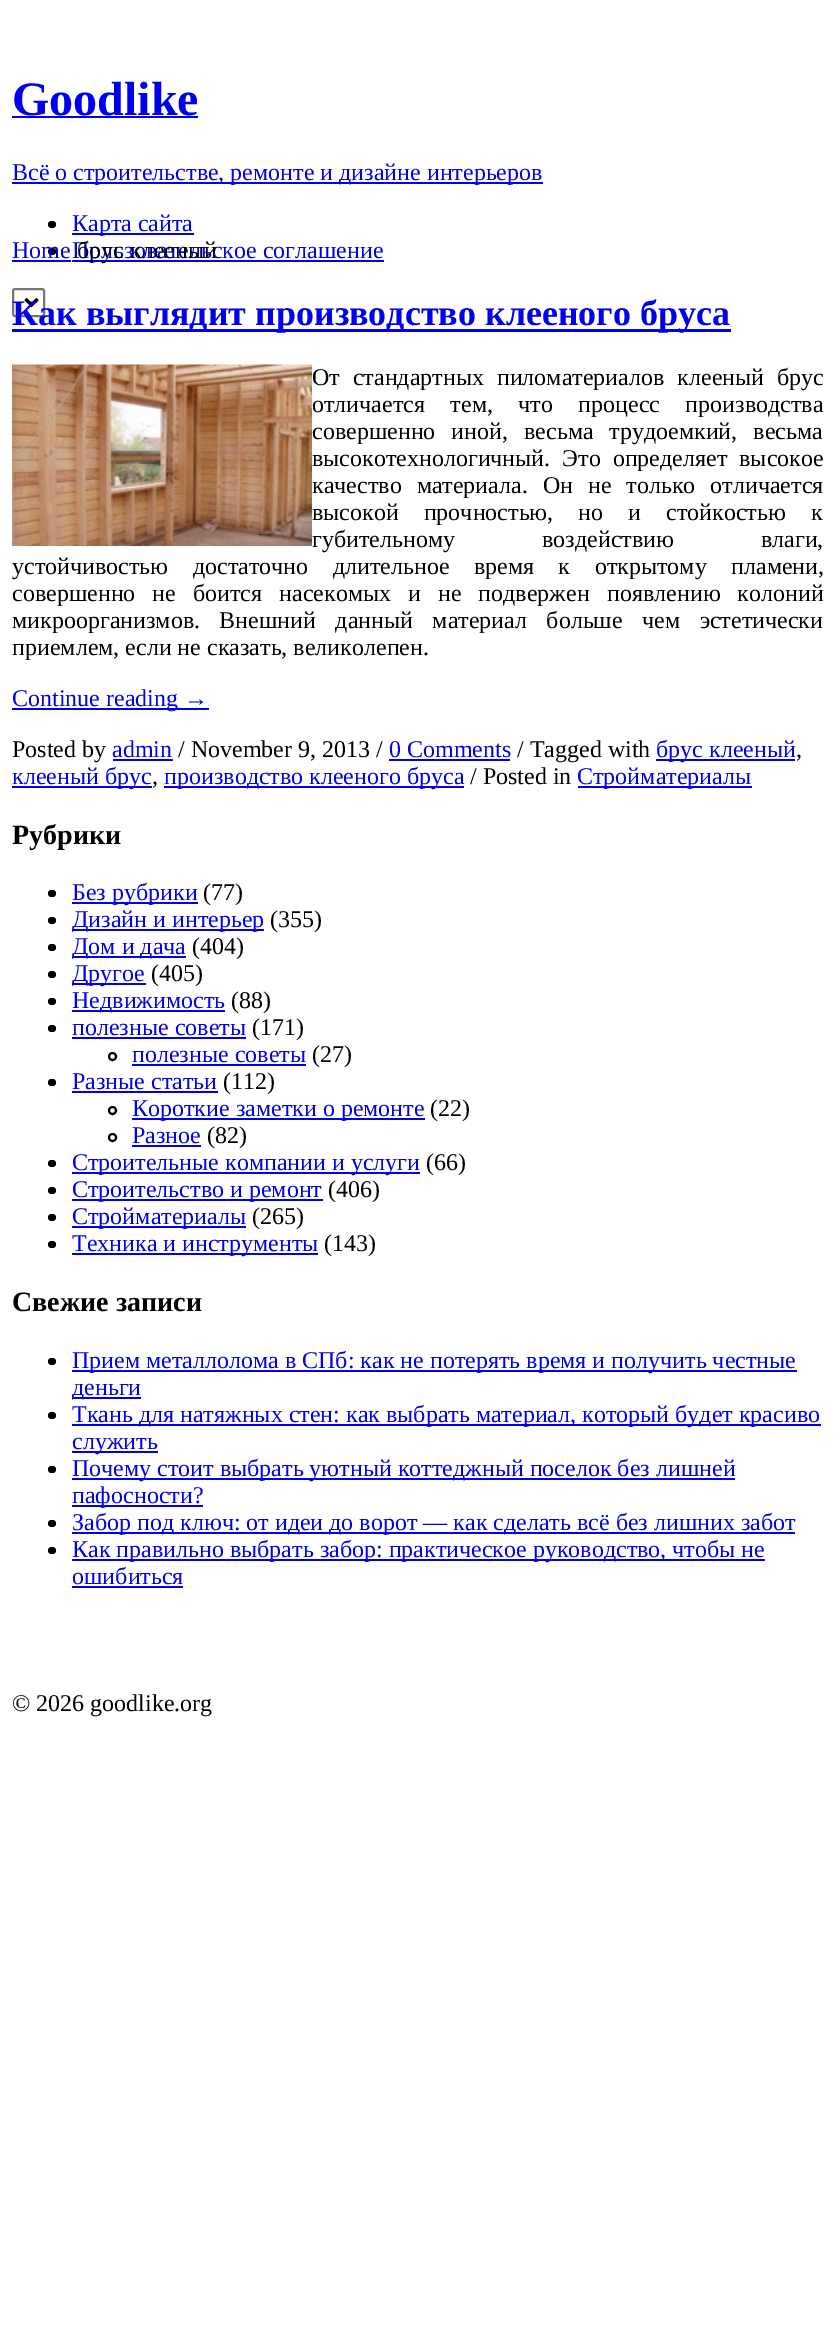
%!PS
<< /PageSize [835 2335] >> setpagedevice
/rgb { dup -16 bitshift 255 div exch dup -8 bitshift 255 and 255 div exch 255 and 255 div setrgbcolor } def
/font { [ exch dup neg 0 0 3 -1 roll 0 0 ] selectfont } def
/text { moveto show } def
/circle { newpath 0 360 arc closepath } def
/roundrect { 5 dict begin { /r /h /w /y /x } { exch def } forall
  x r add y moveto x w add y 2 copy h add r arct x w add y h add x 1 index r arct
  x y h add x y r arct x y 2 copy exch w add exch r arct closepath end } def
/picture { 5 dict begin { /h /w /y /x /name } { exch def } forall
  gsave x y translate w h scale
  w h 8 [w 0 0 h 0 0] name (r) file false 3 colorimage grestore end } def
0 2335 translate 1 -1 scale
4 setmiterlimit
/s1 { /LiberationSerif-Bold 48 font 16#0000EE rgb } def
/s2 { /LiberationSerif-Regular 24 font 16#0000EE rgb } def
/s3 { /LiberationSerif-Regular 24 font 16#000000 rgb } def
/s4 { /LiberationSerif-Bold 36 font 16#0000EE rgb } def
/s5 { /LiberationSerif-Bold 28 font 16#000000 rgb } def
16#FFFFFF rgb
0 0 835 2335 rectfill
s1
(Goodlike) 12 115 text
12 116 186 2 rectfill
12 182 531 2 rectfill
s2
(Всё о строительстве, ремонте и дизайне интерьеров) 12 180 text
16#000000 rgb
48 221 8 7 3.5 roundrect fill
16#0000EE rgb
72 233 122 2 rectfill
(Карта сайта) 72 231 text
16#000000 rgb
48 248 8 7 3.5 roundrect fill
s2
(Пользовательское соглашение) 72 258 text
72 260 312 2 rectfill
16#767676 rgb
2 setlinewidth
13 289 31 27 2 roundrect stroke
16#000000 rgb
3 setlinewidth
25.5 299 moveto 31.5 305 lineto 37.5 299 lineto stroke
s2
(Home) 12 258 text
12 260 59 2 rectfill
s3
(брус клееный) 77 258 text
16#0000EE rgb
12 329 719 3 rectfill
s4
(Как выглядит производство клееного бруса) 12 325 text
(pic1.raw) 12 364 300 182 picture
/LiberationSerif-Regular 24 font
16#000000 rgb
312 385 moveto 7 0 32 (От стандартных пиломатериалов клееный брус) widthshow
312 412 moveto 19.5 0 32 (отличается тем, что процесс производства) widthshow
312 439 moveto 10 0 32 (совершенно иной, весьма трудоемкий, весьма) widthshow
312 466 moveto 6 0 32 (высокотехнологичный. Это определяет высокое) widthshow
312 493 moveto 9 0 32 (качество материала. Он не только отличается) widthshow
312 520 moveto 19 0 32 (высокой прочностью, но и стойкостью к) widthshow
312 547 moveto 81 0 32 (губительному воздействию влаги,) widthshow
12 574 moveto 18.5 0 32 (устойчивостью достаточно длительное время к открытому пламени,) widthshow
12 601 moveto 11 0 32 (совершенно не боится насекомых и не подвержен) widthshow
607 601 moveto 11 0 32 (появлению колоний) widthshow
12 628 moveto 13.5 0 32 (микроорганизмов. Внешний данный материал больше чем эстетически) widthshow
(приемлем, если не сказать, великолепен.) 12 655 text
16#0000EE rgb
12 708 197 2 rectfill
(Continue reading →) 12 706 text
s3
(Posted by) 12 757 text
s2
(admin) 112 757 text
113 759 60 2 rectfill
s3
(/ November 9, 2013 /) 178 757 text
s2
(0 Comments) 389 757 text
389 759 121 2 rectfill
s3
(/ Tagged with) 517 757 text
16#0000EE rgb
656 759 139 2 rectfill
(брус клееный) 656 757 text
s3
(,) 796 757 text
16#0000EE rgb
12 786 140 2 rectfill
(клееный брус) 12 784 text
s3
(,) 152 784 text
16#0000EE rgb
164 786 300 2 rectfill
(производство клееного бруса) 164 784 text
s3
(/ Posted in) 470 784 text
16#0000EE rgb
578 786 174 2 rectfill
(Стройматериалы) 577 784 text
s5
(Рубрики) 12 844 text
48 890 8 7 3.5 roundrect fill
16#0000EE rgb
72 902 126 2 rectfill
s2
(Без рубрики) 72 900 text
s3
(\(77\)) 203 900 text
48 917 8 7 3.5 roundrect fill
16#0000EE rgb
72 929 192 2 rectfill
(Дизайн и интерьер) 72 927 text
s3
(\(355\)) 270 927 text
48 944 8 7 3.5 roundrect fill
16#0000EE rgb
72 956 114 2 rectfill
(Дом и дача) 72 954 text
s3
(\(404\)) 192 954 text
48 971 8 7 3.5 roundrect fill
16#0000EE rgb
72 983 74 2 rectfill
(Другое) 72 981 text
s3
(\(405\)) 151 981 text
48 998 8 7 3.5 roundrect fill
16#0000EE rgb
72 1010 153 2 rectfill
(Недвижимость) 72 1008 text
s3
(\(88\)) 231 1008 text
48 1025 8 7 3.5 roundrect fill
s2
(полезные советы) 72 1035 text
72 1037 174 2 rectfill
s3
(\(171\)) 252 1035 text
2 setlinewidth
112.5 1056.5 3.5 circle stroke
s2
(полезные советы) 132 1062 text
132 1064 174 2 rectfill
s3
(\(27\)) 312 1062 text
48 1079 8 7 3.5 roundrect fill
s2
(Разные статьи) 72 1089 text
72 1091 146 2 rectfill
s3
(\(112\)) 223 1089 text
112.5 1110.5 3.5 circle stroke
16#0000EE rgb
132 1118 293 2 rectfill
(Короткие заметки о ремонте) 132 1116 text
s3
(\(22\)) 430 1116 text
112.5 1137.5 3.5 circle stroke
s2
(Разное) 132 1143 text
132 1145 69 2 rectfill
s3
(\(82\)) 207 1143 text
48 1160 8 7 3.5 roundrect fill
16#0000EE rgb
72 1172 348 2 rectfill
(Строительные компании и услуги) 72 1170 text
s3
(\(66\)) 426 1170 text
48 1187 8 7 3.5 roundrect fill
16#0000EE rgb
72 1199 251 2 rectfill
(Строительство и ремонт) 72 1197 text
s3
(\(406\)) 328 1197 text
48 1214 8 7 3.5 roundrect fill
16#0000EE rgb
72 1226 174 2 rectfill
(Стройматериалы) 72 1224 text
s3
(\(265\)) 252 1224 text
48 1241 8 7 3.5 roundrect fill
16#0000EE rgb
72 1253 246 2 rectfill
(Техника и инструменты) 72 1251 text
s3
(\(143\)) 324 1251 text
s5
(Свежие записи) 12 1311 text
48 1358 8 7 3.5 roundrect fill
16#0000EE rgb
72 1370 725 2 rectfill
s2
(Прием металлолома в СПб: как не потерять время и получить честные) 72 1368 text
72 1397 69 2 rectfill
(деньги) 72 1395 text
16#000000 rgb
48 1412 8 7 3.5 roundrect fill
16#0000EE rgb
72 1424 749 2 rectfill
(Ткань для натяжных стен: как выбрать материал, который будет красиво) 72 1422 text
72 1451 86 2 rectfill
(служить) 72 1449 text
16#000000 rgb
48 1466 8 7 3.5 roundrect fill
16#0000EE rgb
72 1478 663 2 rectfill
(Почему стоит выбрать уютный коттеджный поселок без лишней) 72 1476 text
72 1505 131 2 rectfill
(пафосности?) 72 1503 text
16#000000 rgb
48 1520 8 7 3.5 roundrect fill
16#0000EE rgb
72 1532 723 2 rectfill
(Забор под ключ: от идеи до ворот — как сделать всё без лишних забот) 72 1530 text
16#000000 rgb
48 1547 8 7 3.5 roundrect fill
16#0000EE rgb
72 1559 693 2 rectfill
(Как правильно выбрать забор: практическое руководство, чтобы не) 72 1557 text
(ошибиться) 72 1584 text
72 1586 111 2 rectfill
s3
(© 2026 goodlike.org) 12 1711 text
showpage
